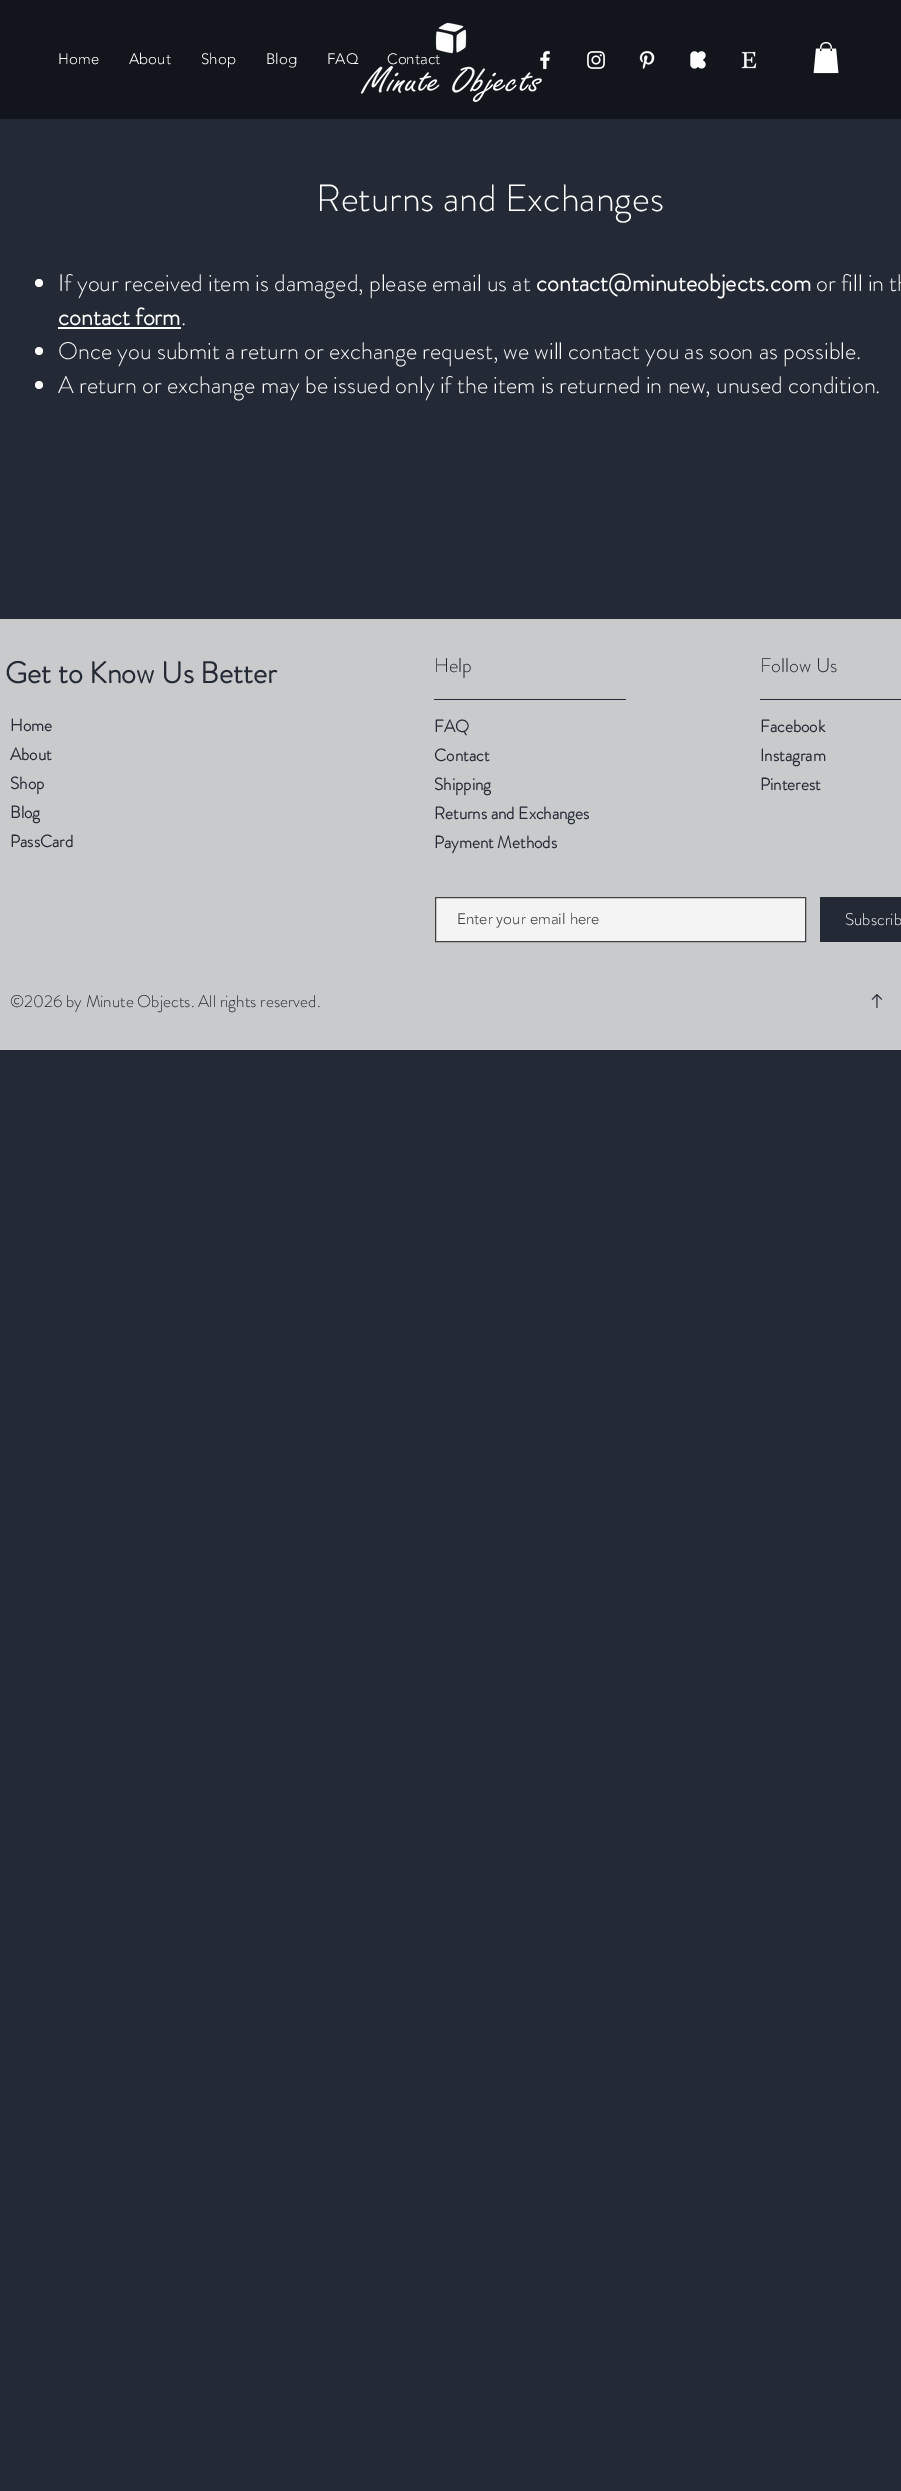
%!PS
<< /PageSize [901 2491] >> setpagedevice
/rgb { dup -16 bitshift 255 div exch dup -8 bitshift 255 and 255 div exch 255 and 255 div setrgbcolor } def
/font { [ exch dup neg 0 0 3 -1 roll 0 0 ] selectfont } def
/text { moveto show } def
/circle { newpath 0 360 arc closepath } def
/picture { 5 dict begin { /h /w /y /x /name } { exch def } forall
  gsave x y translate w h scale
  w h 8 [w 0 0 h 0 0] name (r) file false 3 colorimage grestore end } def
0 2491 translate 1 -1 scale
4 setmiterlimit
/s1 { /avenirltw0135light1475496-Light 15 font 16#FFFFFF rgb } def
/s2 { /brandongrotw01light-Light 38 font 16#FFFFFF rgb } def
/s3 { /brandongrotw01light-Light 24 font 16#FFFFFF rgb } def
/s4 { /brandongrotw01light-Bold 24 font 16#FFFFFF rgb } def
/s5 { /brandongrotw01light-Bold 30 font 16#242A35 rgb } def
/s6 { /brandongrotw01light-Light 20 font 16#242A35 rgb } def
/s7 { /brandongrotw01light-Bold 17 font 16#242A35 rgb } def
/s8 { /avenirltw0135light1475496-Light 15 font 16#414141 rgb } def
/s9 { /brandongrotw01light-Light 17 font 16#FFFFFF rgb } def
/s10 { /brandongrotw01light-Light 17 font 16#242A35 rgb } def
16#242A35 rgb
0 0 901 2491 rectfill
16#12151B rgb
0 0 901 119 rectfill
s1
(Home) 58 64 text
(About) 129 64 text
(Shop) 201 64 text
(Blog) 266 64 text
(FAQ) 327 64 text
(Contact) 387 64 text
(pic1.raw) 435 22 32 32 picture
(pic3.raw) 540 50 10 20 picture
(pic2.raw) 360 65 182 38 picture
(pic4.raw) 587 51 18 18 picture
(pic5.raw) 639 50 16 19 picture
(pic6.raw) 690 51 16 18 picture
(pic7.raw) 741 51 16 18 picture
(pic8.raw) 813 42 26 32 picture
s2
(Returns and Exchanges) 316 211 text
39 283 4 circle fill
s3
(If your received item is damaged, please email us at) 58 291 text
s4
(contact@minuteobjects.com) 536 291 text
s3
(or fill in th) 816 291 text
s4
(contact form) 58 325 text
s3
(.) 181 325 text
58 327 123 2 rectfill
39 351 4 circle fill
(Once you submit a return or exchange request, we will contact you as soon as possible.) 58 359 text
39 385 4 circle fill
(A return or exchange may be issued only if the item is returned in new, unused condition.) 58 393 text
16#C8CACC rgb
0 619 901 431 rectfill
s5
(Get to Know Us Better) 5 683 text
s6
(Help) 434 672 text
(Follow Us) 760 672 text
434 699 192 1 rectfill
760 699 141 1 rectfill
s7
(Home) 10 731 text
(About) 10 760 text
(Shop) 10 789 text
(Blog) 10 818 text
(PassCard) 10 847 text
(FAQ) 434 732 text
(Contact) 434 761 text
(Shipping) 434 790 text
(Returns and Exchanges) 434 819 text
(Payment Methods) 434 848 text
(Facebook) 760 732 text
(Instagram) 760 761 text
(Pinterest) 760 790 text
16#F4F4F5 rgb
435.5 897.5 moveto 805.5 897.5 lineto 805.5 941.5 lineto 435.5 941.5 lineto closepath gsave fill grestore
16#414141 rgb
stroke
s8
(Enter your email here) 457 924 text
16#242A35 rgb
820 897 81 45 rectfill
s9
(Subscrib) 845 925 text
s10
(©2026 by Minute Objects. All rights reserved.) 10 1007 text
(pic9.raw) 871 994 12 14 picture
showpage
